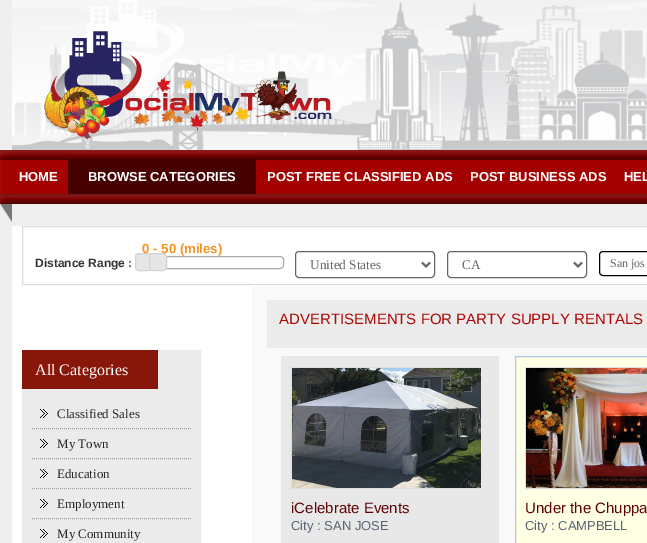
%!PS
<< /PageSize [647 543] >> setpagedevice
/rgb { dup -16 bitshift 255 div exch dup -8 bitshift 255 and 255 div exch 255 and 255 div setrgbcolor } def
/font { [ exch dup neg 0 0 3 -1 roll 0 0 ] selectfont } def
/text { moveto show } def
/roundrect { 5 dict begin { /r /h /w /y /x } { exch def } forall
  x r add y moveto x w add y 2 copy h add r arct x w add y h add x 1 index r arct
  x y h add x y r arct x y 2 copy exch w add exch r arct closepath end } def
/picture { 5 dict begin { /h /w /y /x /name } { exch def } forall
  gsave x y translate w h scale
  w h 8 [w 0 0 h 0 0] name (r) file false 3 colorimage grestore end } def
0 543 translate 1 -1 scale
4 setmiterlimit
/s1 { /LiberationSans-Bold 13 font 16#FFFFFF rgb } def
/s2 { /LiberationSans-Bold 13.25 font 16#F6931F rgb } def
/s3 { /LiberationSans-Bold 12 font 16#353535 rgb } def
/s4 { /LiberationSerif-Regular 13.25 font 16#656565 rgb } def
/s5 { /LiberationSerif-Regular 12 font 16#656565 rgb } def
/s6 { /LiberationSerif-Regular 16 font 16#FFFFFF rgb } def
/s7 { /LiberationSerif-Regular 13 font 16#282828 rgb } def
/s8 { /LiberationSans-Regular 15 font 16#AC0605 rgb } def
/s9 { /LiberationSans-Regular 15 font 16#5D0303 rgb } def
/s10 { /LiberationSans-Regular 13 font 16#586473 rgb } def
16#EFEFEF rgb
0 0 647 543 rectfill
(pic1.raw) 12 0 635 150 picture
(pic2.raw) 44 31 288 108 picture
(pic3.raw) 0 150 12 73 picture
(pic4.raw) 12 150 635 54 picture
s1
(HOME) 19 181 text
16#470101 rgb
68 159 188 35 rectfill
s1
(BROWSE CATEGORIES) 88 181 text
(POST FREE CLASSIFIED ADS) 267 181 text
(POST BUSINESS ADS) 470 181 text
(HEL) 624 181 text
12 226 635 317 rectfill
16#DDDDDD rgb
22.5 226.5 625 58 rectstroke
s2
(0 - 50 \(miles\)) 142 253 text
16#AAAAAA rgb
142.5 256.5 141 12 3.5 roundrect stroke
16#E6E6E6 rgb
135.5 253.5 17 17 3.5 roundrect gsave fill grestore
16#D3D3D3 rgb
stroke
16#E6E6E6 rgb
149.5 253.5 17 17 3.5 roundrect gsave fill grestore
16#D3D3D3 rgb
stroke
s3
(Distance Range :) 35 267 text
16#656565 rgb
295.5 251.5 139 26 3.5 roundrect stroke
2 setlinewidth
422 262.5 moveto 426 266.5 lineto 430 262.5 lineto stroke
s4
(United States) 310 269 text
1 setlinewidth
447.5 251.5 139 26 3.5 roundrect stroke
2 setlinewidth
574 262.5 moveto 578 266.5 lineto 582 262.5 lineto stroke
(CA) 462 269 text
16#000000 rgb
1 setlinewidth
599.5 251.5 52 24 3.5 roundrect stroke
s5
(San jos) 610 267 text
16#EBEBEB rgb
22 350 179 193 rectfill
16#88170A rgb
22 350 136 39 rectfill
s6
(All Categories) 35 375 text
(pic5.raw) 40 409 8 9 picture
16#9E9E9E rgb
[1 1] 0 setdash
32 428.5 moveto 191 428.5 lineto stroke
s7
(Classified Sales) 57 418 text
(pic5.raw) 40 439 8 9 picture
16#9E9E9E rgb
32 458.5 moveto 191 458.5 lineto stroke
s7
(My Town) 57 448 text
(pic5.raw) 40 469 8 9 picture
16#9E9E9E rgb
32 488.5 moveto 191 488.5 lineto stroke
s7
(Education) 57 478 text
(pic5.raw) 40 499 8 9 picture
16#9E9E9E rgb
32 518.5 moveto 191 518.5 lineto stroke
s7
(Employment) 57 508 text
(pic5.raw) 40 529 8 9 picture
(My Community) 57 538 text
16#F9F9F9 rgb
252 285 395 258 rectfill
16#EBEBEB rgb
267 300 380 48 rectfill
s8
(ADVERTISEMENTS FOR PARTY SUPPLY RENTALS) 279 324 text
16#E8E8E8 rgb
281 356 218 187 rectfill
gsave
291 367 190 122 rectclip
16#DEDEDE rgb
[] 0 setdash
291.5 367.5 191 121 rectstroke
grestore
(pic6.raw) 292 368 189 120 picture
s9
(iCelebrate Events) 291 513 text
s10
(City : SAN JOSE) 291 530 text
16#FFFFE3 rgb
515.5 356.5 moveto 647.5 356.5 lineto 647.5 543.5 lineto 515.5 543.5 lineto closepath gsave fill grestore
16#B0C3EB rgb
[] 0 setdash
stroke
16#DEDEDE rgb
525.5 367.5 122 121 rectstroke
(pic7.raw) 526 368 121 120 picture
s9
(Under the Chuppa) 525 513 text
s10
(City : CAMPBELL) 525 530 text
showpage
